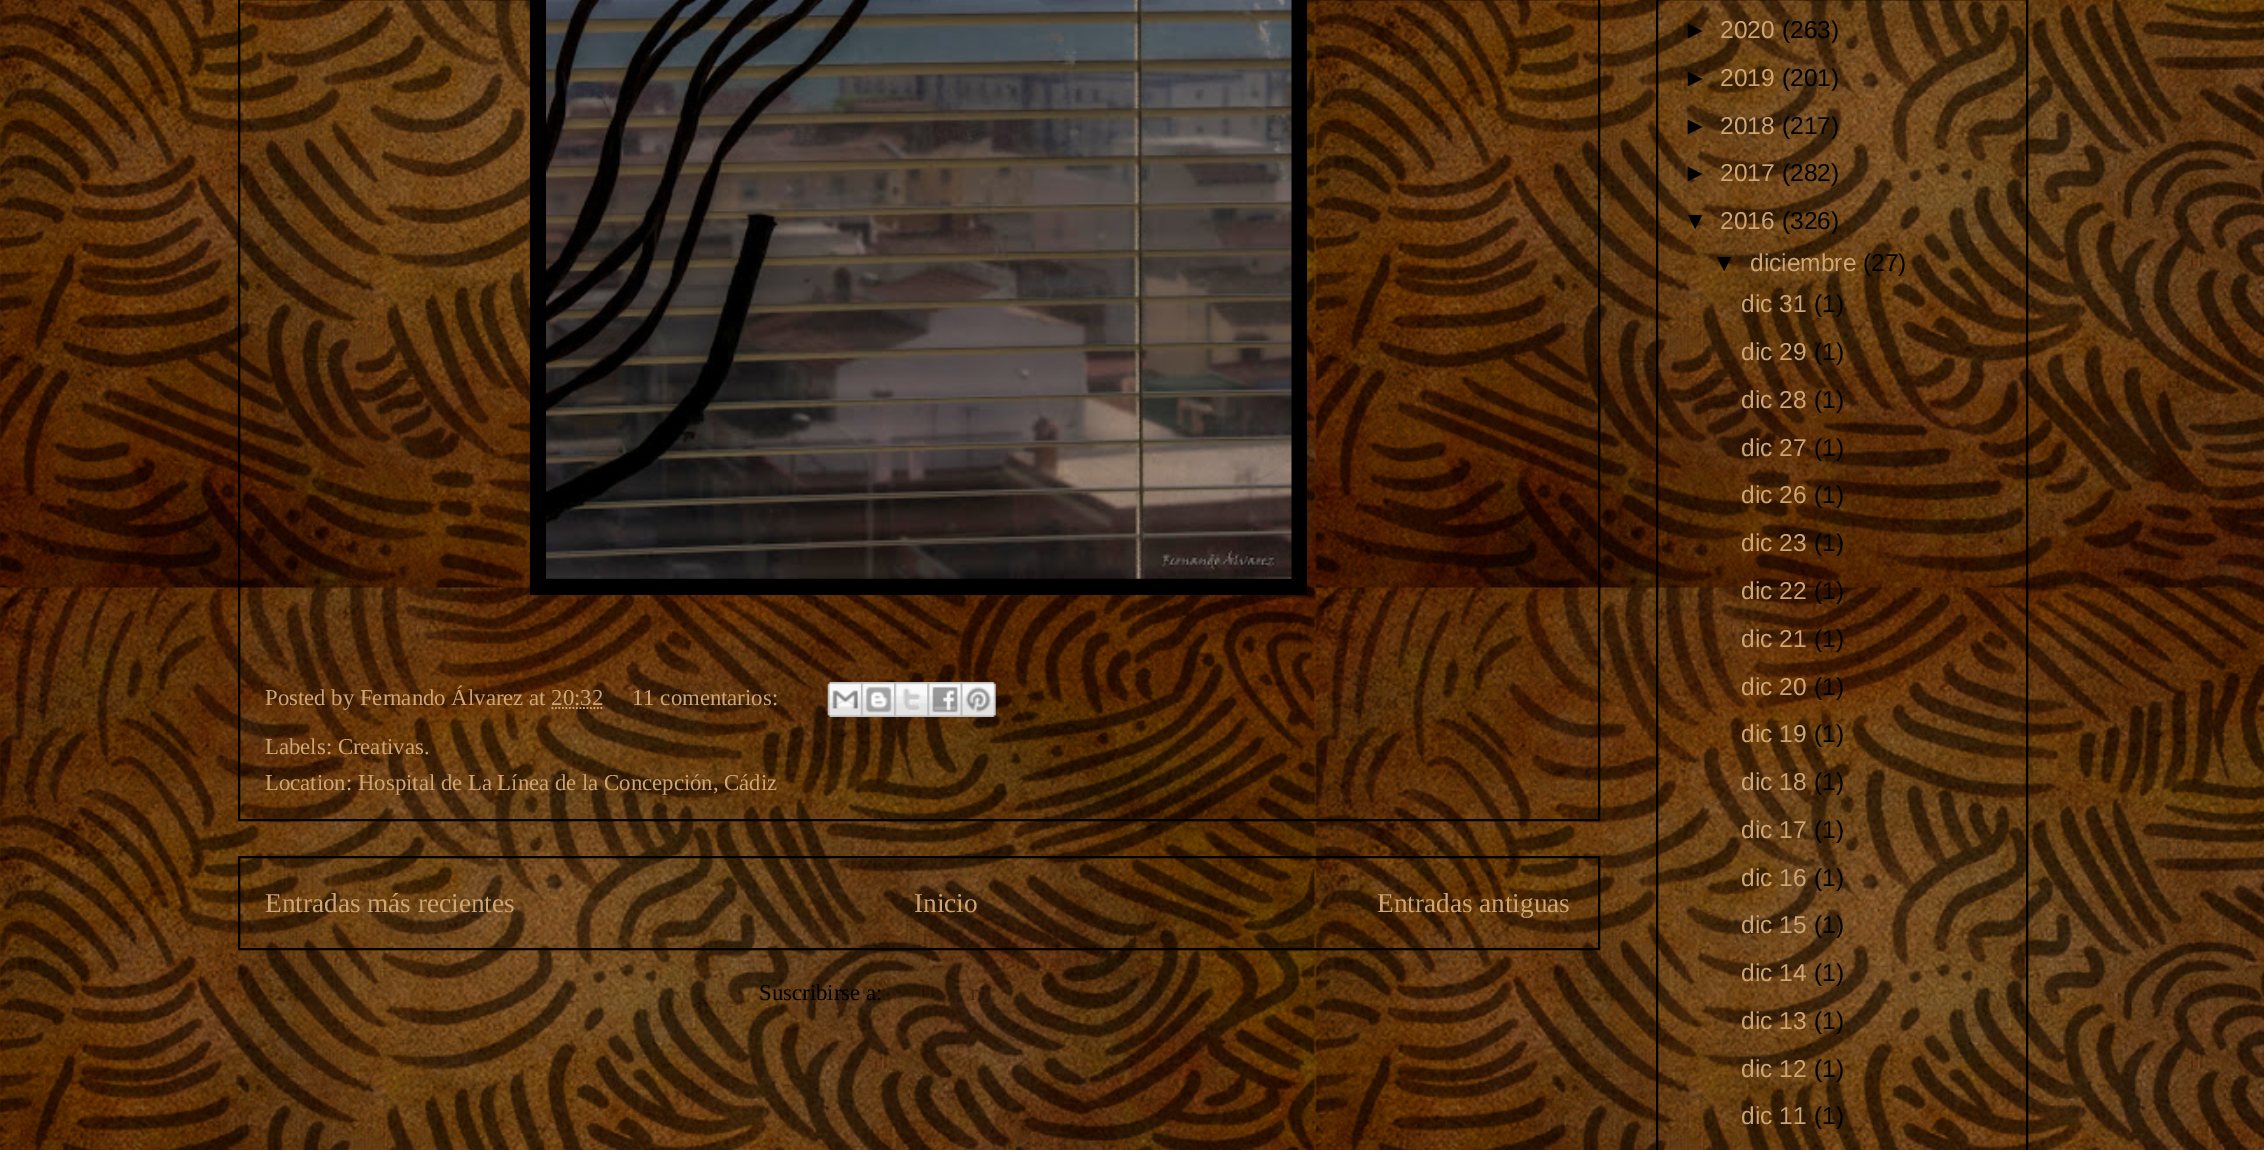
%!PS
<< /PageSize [2264 1150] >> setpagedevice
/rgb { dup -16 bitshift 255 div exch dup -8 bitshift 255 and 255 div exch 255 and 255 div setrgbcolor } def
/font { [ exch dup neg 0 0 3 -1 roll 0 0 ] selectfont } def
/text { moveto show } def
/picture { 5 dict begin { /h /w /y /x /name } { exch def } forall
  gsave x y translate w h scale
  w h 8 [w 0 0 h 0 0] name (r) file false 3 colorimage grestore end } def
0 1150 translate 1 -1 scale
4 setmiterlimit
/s1 { /LiberationSerif-Regular 22.75 font 16#CEA673 rgb } def
/s2 { /LiberationSerif-Regular 27.25 font 16#CEA673 rgb } def
/s3 { /LiberationSerif-Regular 22.75 font 16#000000 rgb } def
/s4 { /LiberationSerif-Regular 22.75 font 16#45270D rgb } def
/s5 { /LiberationSans-Regular 24.5 font 16#000000 rgb } def
/s6 { /LiberationSans-Regular 24.5 font 16#CEA673 rgb } def
16#FFFFFF rgb
0 0 2264 1150 rectfill
(pic1.raw) 0 0 2264 1150 picture
16#000000 rgb
2 setlinewidth
239 -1 1360 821 rectstroke
530 0 777 595 rectfill
(pic2.raw) 546 0 746 579 picture
s1
(Posted by Fernando Álvarez at 20:32) 265 705 text
(11 comentarios:) 632 705 text
(pic3.raw) 827 682 34 35 picture
(pic4.raw) 861 682 34 35 picture
(pic5.raw) 894 682 34 35 picture
(pic6.raw) 927 682 34 35 picture
(pic7.raw) 960 682 36 35 picture
1.8 setlinewidth
[1.75 1.75] 0 setdash
551.5 708 moveto 603 708 lineto stroke
(Labels: Creativas.) 265 754 text
(Location: Hospital de La Línea de la Concepción, Cádiz) 265 790 text
16#000000 rgb
2 setlinewidth
[] 0 setdash
239 857 1360 92 rectstroke
s2
(Entradas más recientes) 265 912 text
(Inicio) 914 912 text
(Entradas antiguas) 1377 912 text
s3
(Suscribirse a:) 759 1000 text
s4
(r) 970 1000 text
16#000000 rgb
1657 -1 370 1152 rectstroke
s5
(►) 1683 38 text
s6
(2020) 1720 38 text
s5
(\(263\)) 1782 38 text
(►) 1683 86 text
s6
(2019) 1720 86 text
s5
(\(201\)) 1782 86 text
(►) 1683 134 text
s6
(2018) 1720 134 text
s5
(\(217\)) 1782 134 text
(►) 1683 181 text
s6
(2017) 1720 181 text
s5
(\(282\)) 1782 181 text
(▼) 1683 229 text
s6
(2016) 1720 229 text
s5
(\(326\)) 1782 229 text
(▼) 1712 271 text
s6
(diciembre) 1750 271 text
s5
(\(27\)) 1863 271 text
s6
(dic 31) 1741 312 text
s5
(\(1\)) 1814 312 text
s6
(dic 29) 1741 360 text
s5
(\(1\)) 1814 360 text
s6
(dic 28) 1741 408 text
s5
(\(1\)) 1814 408 text
s6
(dic 27) 1741 456 text
s5
(\(1\)) 1814 456 text
s6
(dic 26) 1741 503 text
s5
(\(1\)) 1814 503 text
s6
(dic 23) 1741 551 text
s5
(\(1\)) 1814 551 text
s6
(dic 22) 1741 599 text
s5
(\(1\)) 1814 599 text
s6
(dic 21) 1741 647 text
s5
(\(1\)) 1814 647 text
s6
(dic 20) 1741 695 text
s5
(\(1\)) 1814 695 text
s6
(dic 19) 1741 742 text
s5
(\(1\)) 1814 742 text
s6
(dic 18) 1741 790 text
s5
(\(1\)) 1814 790 text
s6
(dic 17) 1741 838 text
s5
(\(1\)) 1814 838 text
s6
(dic 16) 1741 886 text
s5
(\(1\)) 1814 886 text
s6
(dic 15) 1741 933 text
s5
(\(1\)) 1814 933 text
s6
(dic 14) 1741 981 text
s5
(\(1\)) 1814 981 text
s6
(dic 13) 1741 1029 text
s5
(\(1\)) 1814 1029 text
s6
(dic 12) 1741 1077 text
s5
(\(1\)) 1814 1077 text
s6
(dic 11) 1741 1124 text
s5
(\(1\)) 1814 1124 text
showpage
